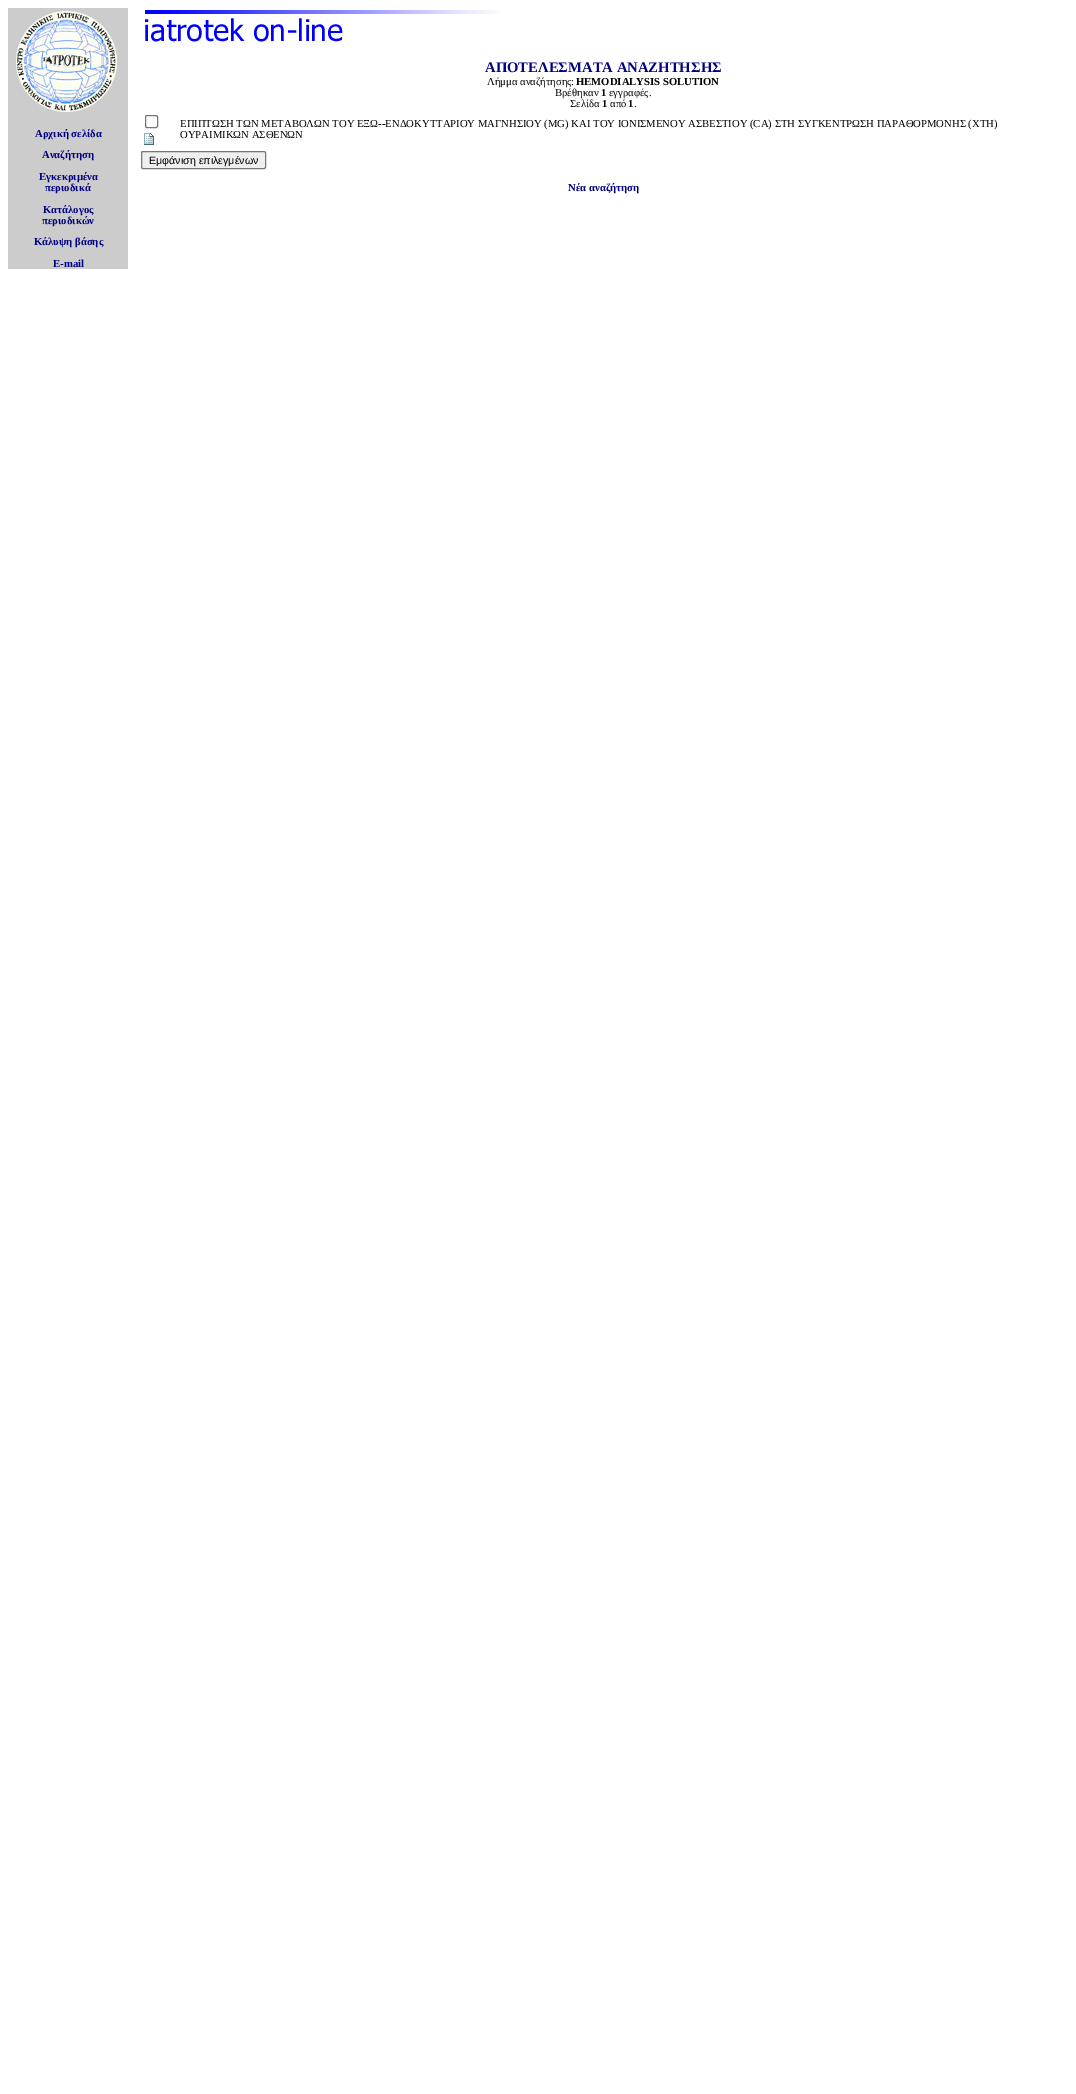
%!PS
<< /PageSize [1076 2094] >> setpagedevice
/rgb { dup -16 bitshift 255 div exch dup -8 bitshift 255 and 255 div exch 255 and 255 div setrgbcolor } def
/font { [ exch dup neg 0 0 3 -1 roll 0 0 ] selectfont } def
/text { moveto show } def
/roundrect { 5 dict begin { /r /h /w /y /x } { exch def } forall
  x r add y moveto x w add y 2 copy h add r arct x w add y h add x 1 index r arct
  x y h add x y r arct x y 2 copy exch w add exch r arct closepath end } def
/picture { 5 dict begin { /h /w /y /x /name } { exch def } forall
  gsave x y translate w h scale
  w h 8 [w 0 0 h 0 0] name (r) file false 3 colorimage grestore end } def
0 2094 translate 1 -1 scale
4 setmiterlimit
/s1 { /LiberationSerif-Bold 14.7 font 16#000080 rgb } def
/s2 { /LiberationSerif-Regular 10.67 font 16#000000 rgb } def
/s3 { /LiberationSerif-Bold 10.67 font 16#000000 rgb } def
/s4 { /LiberationSans-Regular 10.67 font 16#000000 rgb } def
/s5 { /LiberationSerif-Bold 10.67 font 16#000080 rgb } def
16#FFFFFF rgb
0 0 1076 2094 rectfill
16#CCCCCC rgb
8 8 120 261 rectfill
(pic1.raw) 145 10 356 32 picture
s1
(ΑΠΟΤΕΛΕΣΜΑΤΑ ΑΝΑΖΗΤΗΣΗΣ) 485 72 text
s2
(Λήμμα αναζήτησης:) 487 85 text
s3
(HEMODIALYSIS SOLUTION) 576 85 text
s2
(Βρέθηκαν) 555 96 text
s3
(1) 601 96 text
s2
(εγγραφές.) 609 96 text
(Σελίδα) 570 107 text
s3
(1) 602 107 text
s2
(από) 610 107 text
s3
(1) 628 107 text
s2
(.) 634 107 text
16#767676 rgb
145.5 115.5 12 12 1.5 roundrect stroke
(pic2.raw) 144 133 10 12 picture
s2
(ΕΠΙΠΤΩΣΗ ΤΩΝ ΜΕΤΑΒΟΛΩΝ ΤΟΥ ΕΞΩ--ΕΝΔΟΚΥΤΤΑΡΙΟΥ ΜΑΓΝΗΣΙΟΥ \(MG\) ΚΑΙ ΤΟΥ ΙΟΝΙΣΜΕΝΟΥ ΑΣΒΕΣΤΙΟΥ \(CA\) ΣΤΗ ΣΥΓΚΕΝΤΡΩΣΗ ΠΑΡΑΘΟΡΜΟΝΗΣ \(XTH\)) 180 127 text
(ΟΥΡΑΙΜΙΚΩΝ ΑΣΘΕΝΩΝ) 180 138 text
16#EFEFEF rgb
141.5 151.5 124 17 1.5 roundrect gsave fill grestore
16#767676 rgb
stroke
s4
(Εμφάνιση επιλεγμένων) 149 164 text
s5
(Νέα αναζήτηση) 568 191 text
(pic3.raw) 16 11 101 101 picture
(Αρχική σελίδα) 35 137 text
(Αναζήτηση) 42 158 text
(Εγκεκριμένα) 39 180 text
(περιοδικά) 45 191 text
(Κατάλογος) 43 213 text
(περιοδικών) 42 224 text
(Κάλυψη βάσης) 34 245 text
(E-mail) 53 267 text
showpage
